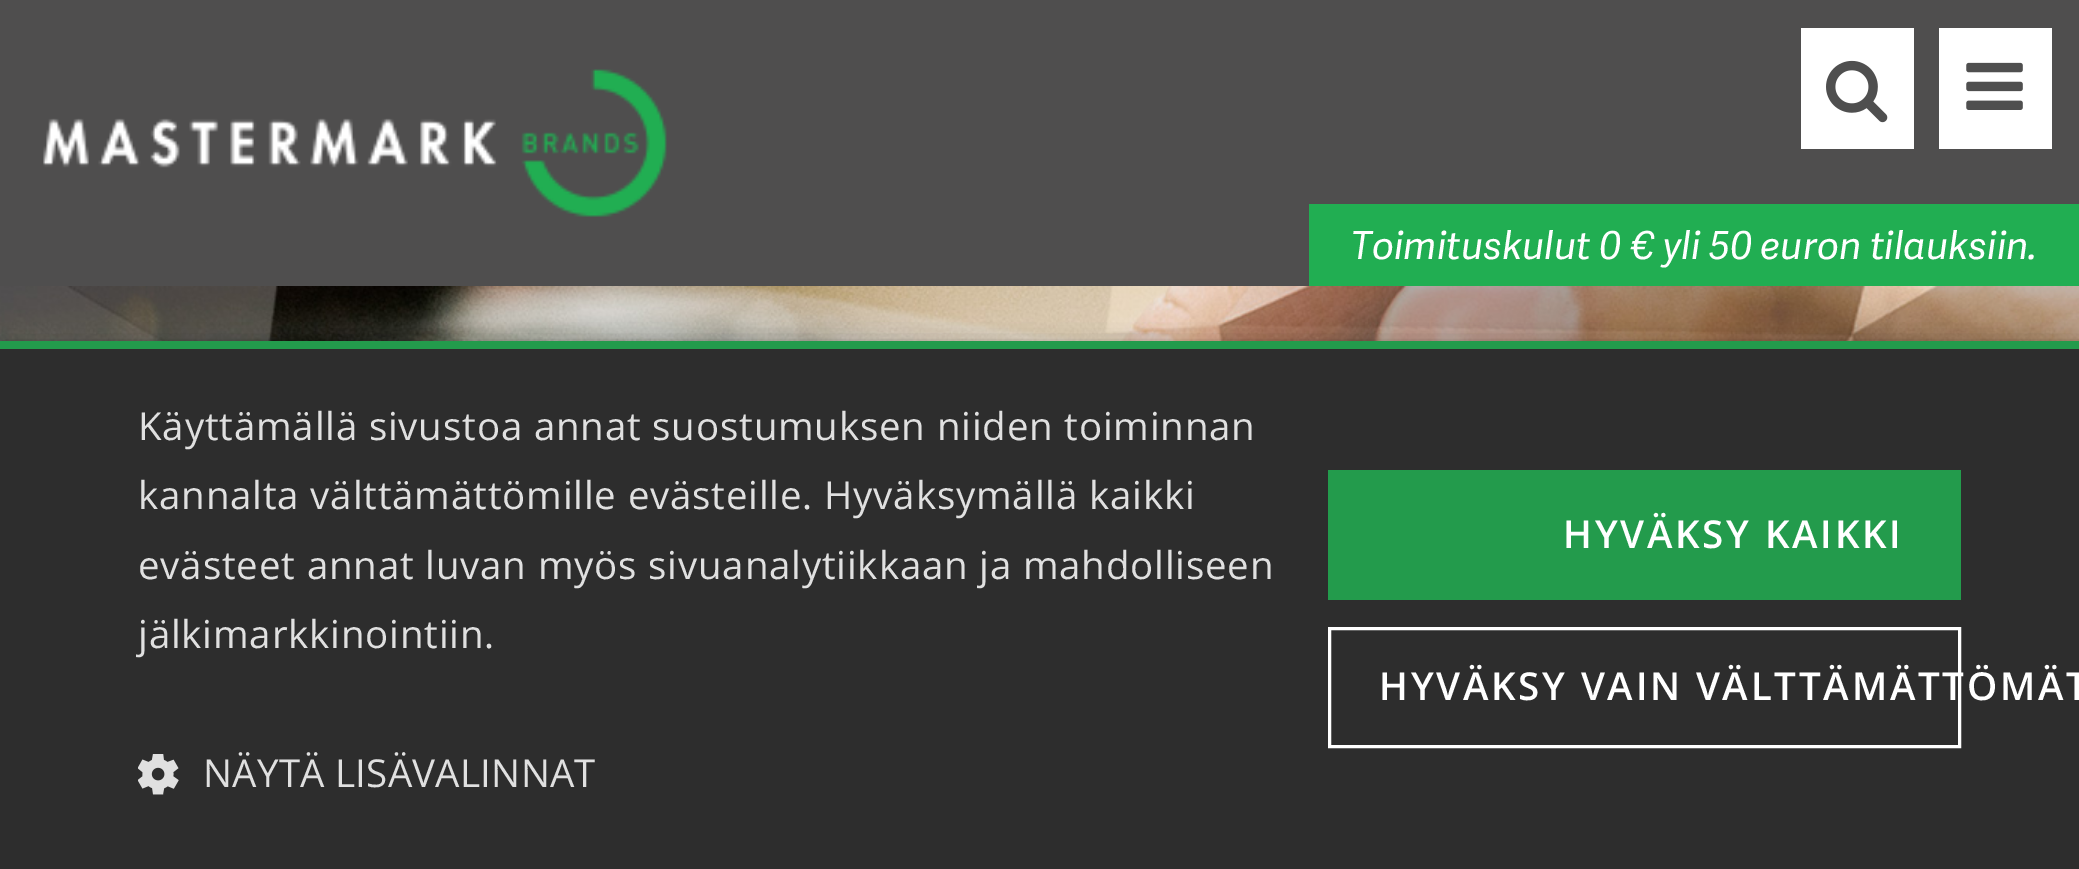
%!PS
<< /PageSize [2079 869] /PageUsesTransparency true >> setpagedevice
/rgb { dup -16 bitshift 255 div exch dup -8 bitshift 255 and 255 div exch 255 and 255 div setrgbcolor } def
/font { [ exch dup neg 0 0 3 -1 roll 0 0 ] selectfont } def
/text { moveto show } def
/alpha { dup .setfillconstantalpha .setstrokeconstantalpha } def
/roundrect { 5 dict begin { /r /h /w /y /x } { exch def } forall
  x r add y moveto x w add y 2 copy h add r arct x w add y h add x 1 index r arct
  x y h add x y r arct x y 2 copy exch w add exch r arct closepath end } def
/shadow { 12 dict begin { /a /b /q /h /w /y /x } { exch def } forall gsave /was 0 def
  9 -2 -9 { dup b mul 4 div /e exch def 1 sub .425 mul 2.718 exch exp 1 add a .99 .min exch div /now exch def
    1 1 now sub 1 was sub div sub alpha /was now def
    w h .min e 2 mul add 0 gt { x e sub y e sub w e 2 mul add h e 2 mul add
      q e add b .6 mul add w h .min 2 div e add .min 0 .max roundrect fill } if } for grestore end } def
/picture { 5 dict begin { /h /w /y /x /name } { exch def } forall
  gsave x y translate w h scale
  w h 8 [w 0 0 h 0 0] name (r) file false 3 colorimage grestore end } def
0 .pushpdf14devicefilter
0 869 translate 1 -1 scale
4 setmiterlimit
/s1 { /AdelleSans-Italic 38.5 font 16#FFFFFF rgb } def
16#FFFFFF rgb
0 0 2079 869 rectfill
16#4F4E4E rgb
0 0 2079 286 rectfill
16#FFFFFF rgb
1801 28 113 121 rectfill
(pic1.raw) 1826 60 62 63 picture
1939 28 113 121 rectfill
(pic2.raw) 1966 62 57 48 picture
(pic3.raw) 43 69 624 148 picture
16#21AE52 rgb
1309 204 770 82 rectfill
s1
(Toimituskulut 0 € yli 50 euron tilauksiin.) 1351 259 text
(pic4.raw) 0 286 2079 55 picture
16#000000 rgb
3 347 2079 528 0 11 0.35 shadow
16#2D2D2D rgb
0 349 2079 520 rectfill
16#239B4C rgb
0 341 2079 8 rectfill
/OpenSans-Regular 38.5 font
16#E0E0E0 rgb
138 440 moveto 0.82 0 (Käyttämällä sivustoa annat suostumuksen niiden toiminnan) ashow
138 509 moveto 0.82 0 (kannalta välttämättömille evästeille. Hyväksymällä kaikki) ashow
138 579 moveto 0.82 0 (evästeet annat luvan myös sivuanalytiikkaan ja mahdolliseen) ashow
138 648 moveto 0.82 0 (jälkimarkkinointiin.) ashow
(pic5.raw) 138 754 41 41 picture
203 787 moveto 0.25 0 (NÄYTÄ LISÄVALINNAT) ashow
16#239B4C rgb
1328 470 633 130 rectfill
/OpenSans-SemiBold 38.5 font
16#FFFFFF rgb
1563 548 moveto 2.75 0 (HYVÄKSY KAIKKI) ashow
3 setlinewidth
1329.5 628.5 630 118 rectstroke
1379 700 moveto 2.75 0 (HYVÄKSY VAIN VÄLTTÄMÄTTÖMÄT) ashow
.poppdf14devicefilter showpage
